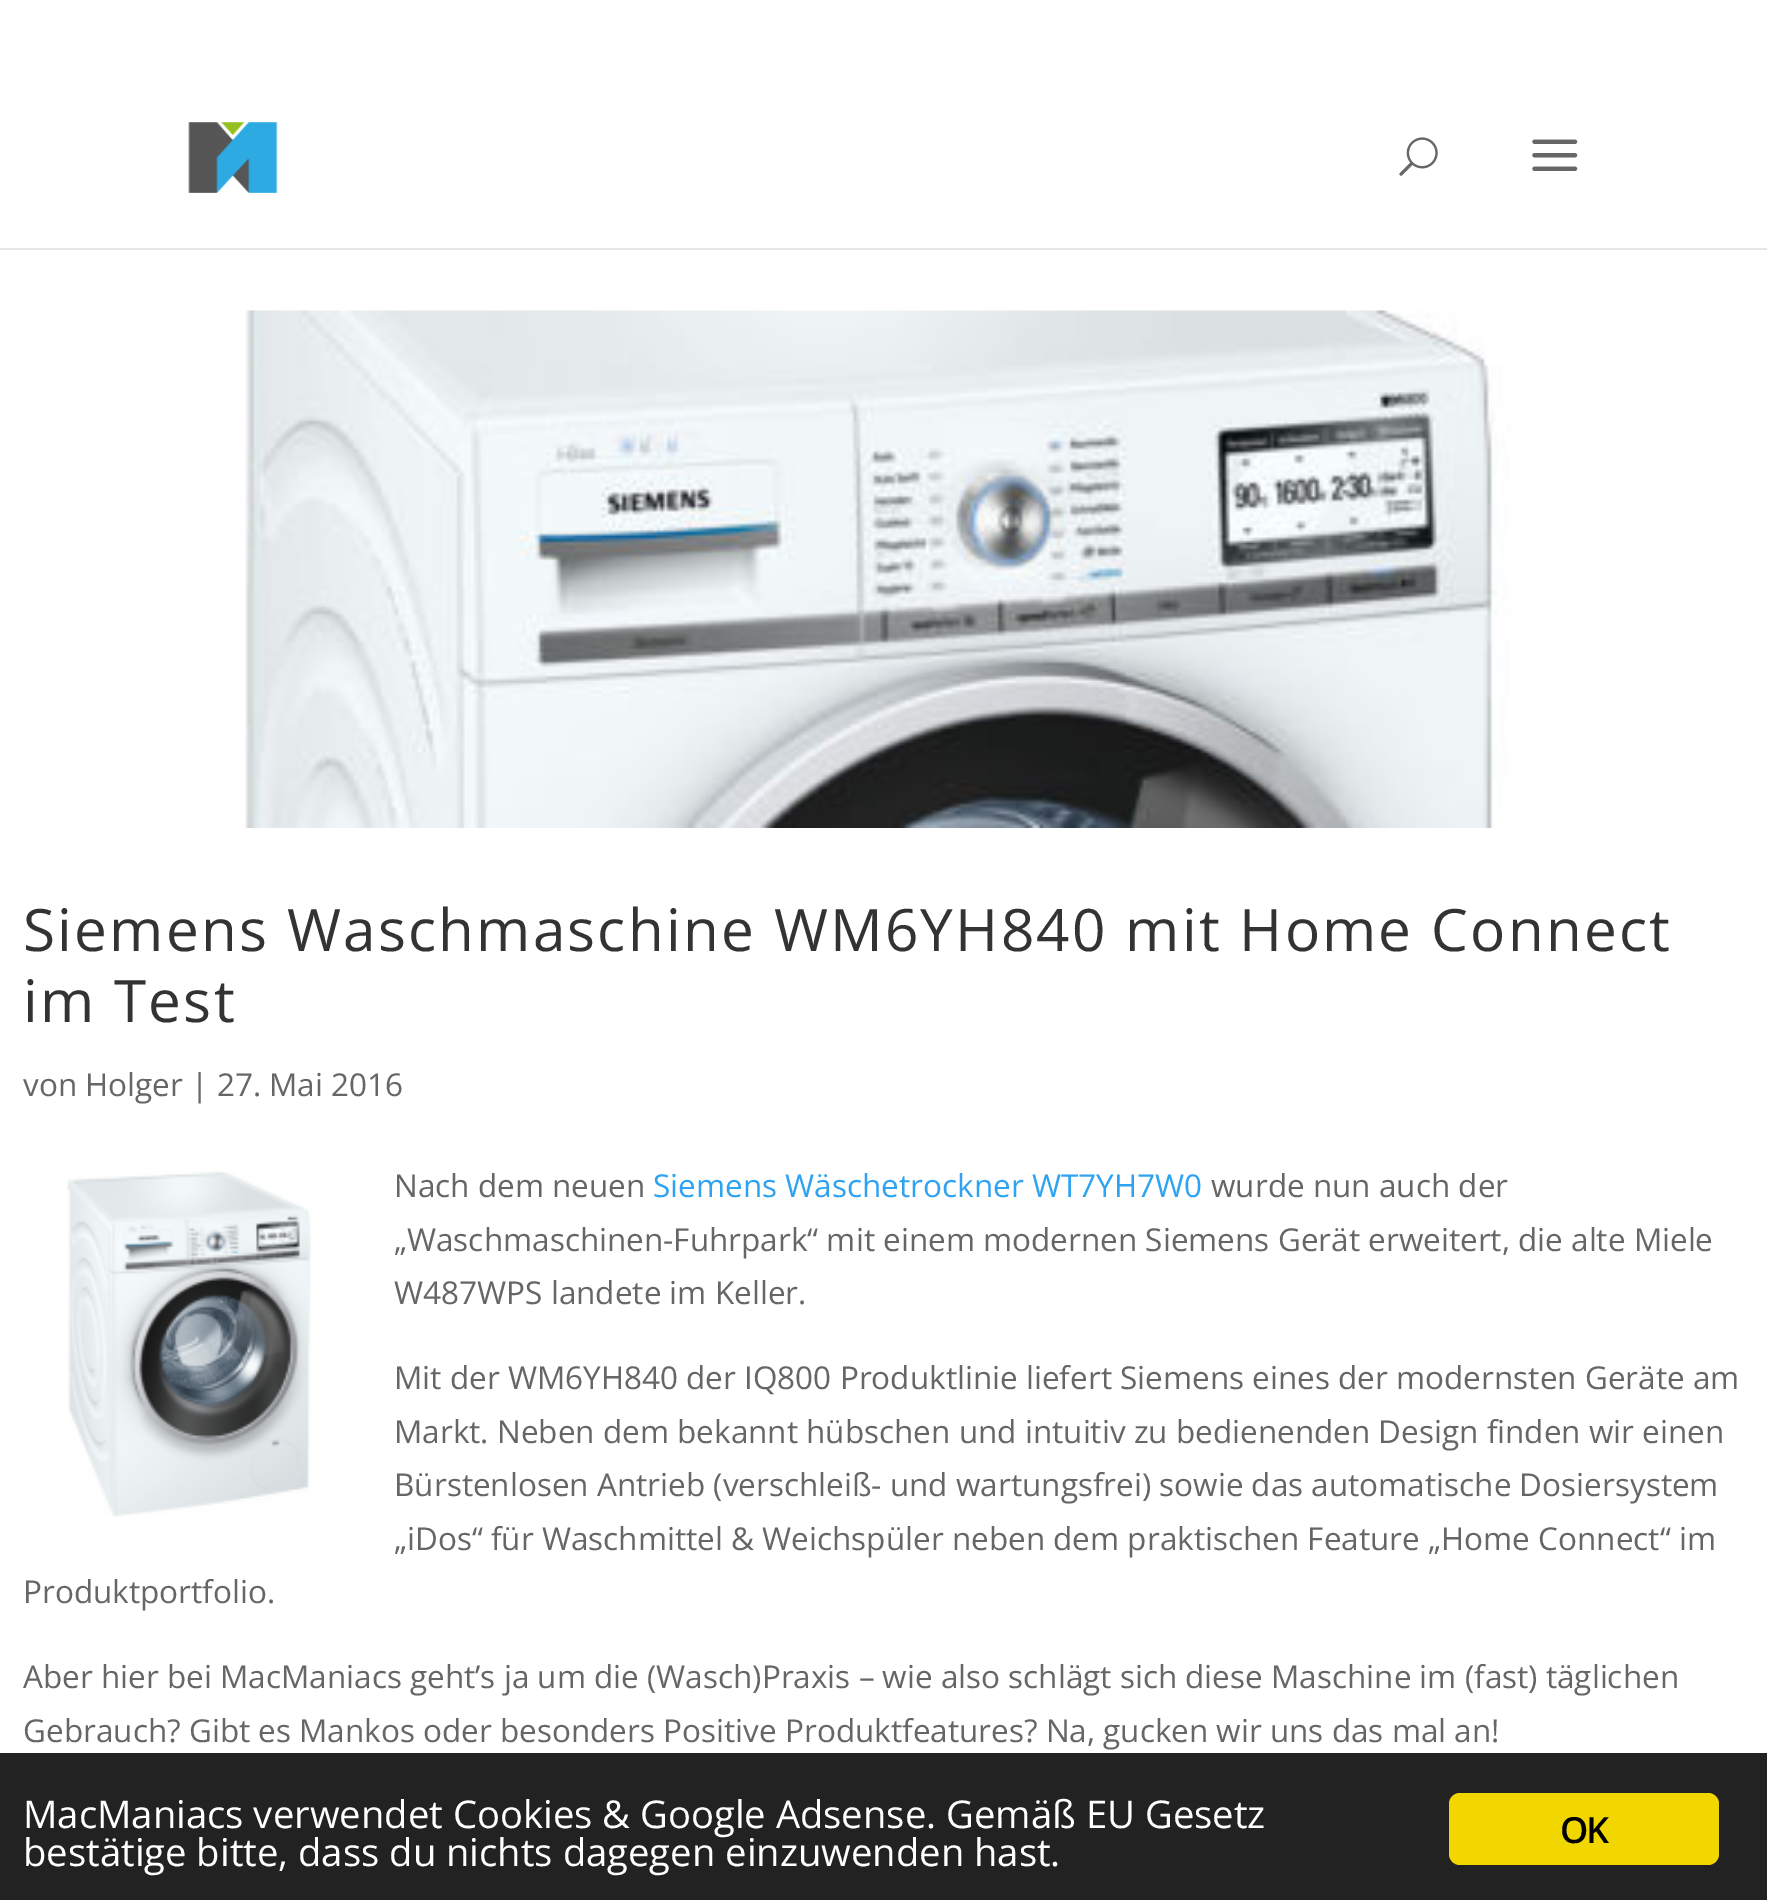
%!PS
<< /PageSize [1767 1900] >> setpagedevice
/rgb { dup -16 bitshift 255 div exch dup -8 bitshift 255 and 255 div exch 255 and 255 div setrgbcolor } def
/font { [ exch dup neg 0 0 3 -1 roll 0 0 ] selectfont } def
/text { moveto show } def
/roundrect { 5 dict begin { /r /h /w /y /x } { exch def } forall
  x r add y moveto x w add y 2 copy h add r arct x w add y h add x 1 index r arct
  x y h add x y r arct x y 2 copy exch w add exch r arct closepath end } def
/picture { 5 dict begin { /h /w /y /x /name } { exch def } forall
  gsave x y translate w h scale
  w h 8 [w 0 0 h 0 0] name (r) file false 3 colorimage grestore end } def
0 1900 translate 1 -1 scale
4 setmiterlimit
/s1 { /OpenSans-Regular 31.5 font 16#666666 rgb } def
/s2 { /OpenSans-Regular 31.5 font 16#2EA3F2 rgb } def
/s3 { /OpenSans-Regular 38.25 font 16#FFFFFF rgb } def
16#FFFFFF rgb
0 0 1767 1900 rectfill
16#E6E6E6 rgb
0 248 moveto 0 250 lineto 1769 250 lineto 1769 70 lineto 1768 70 lineto 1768 248 lineto closepath fill
(pic1.raw) 188 122 90 71 picture
(pic2.raw) 1399 137 39 39 picture
(pic3.raw) 1532 139 46 32 picture
(pic4.raw) 245 310 1266 518 picture
/OpenSans-Regular 58.5 font
16#333333 rgb
23 951 moveto 2.25 0 (Siemens Waschmaschine WM6YH840 mit Home Connect) ashow
23 1022 moveto 2.25 0 (im Test) ashow
s1
(von Holger | 27. Mai 2016) 23 1096 text
(pic5.raw) 67 1171 244 346 picture
(Nach dem neuen) 394 1197 text
s2
(Siemens Wäschetrockner WT7YH7W0) 653 1197 text
s1
(wurde nun auch der) 1211 1197 text
(„Waschmaschinen-Fuhrpark“ mit einem modernen Siemens Gerät erweitert, die alte Miele) 394 1251 text
(W487WPS landete im Keller.) 394 1304 text
(Mit der WM6YH840 der IQ800 Produktlinie liefert Siemens eines der modernsten Geräte am) 394 1389 text
(Markt. Neben dem bekannt hübschen und intuitiv zu bedienenden Design finden wir einen) 394 1443 text
(Bürstenlosen Antrieb \(verschleiß- und wartungsfrei\) sowie das automatische Dosiersystem) 394 1496 text
(„iDos“ für Waschmittel & Weichspüler neben dem praktischen Feature „Home Connect“ im) 394 1550 text
(Produktportfolio.) 23 1603 text
(Aber hier bei MacManiacs geht’s ja um die \(Wasch\)Praxis – wie also schlägt sich diese Maschine im \(fast\) täglichen) 23 1688 text
(Gebrauch? Gibt es Mankos oder besonders Positive Produktfeatures? Na, gucken wir uns das mal an!) 23 1742 text
16#222222 rgb
0 1753 1767 147 rectfill
s3
(MacManiacs verwendet Cookies & Google Adsense. Gemäß EU Gesetz) 23 1828 text
(bestätige bitte, dass du nichts dagegen einzuwenden hast.) 23 1866 text
16#F1D600 rgb
1449 1793 270 72 11 roundrect fill
/OpenSans-SemiBold 36 font
16#000000 rgb
1560 1843 moveto -2 0 (OK) ashow
showpage
